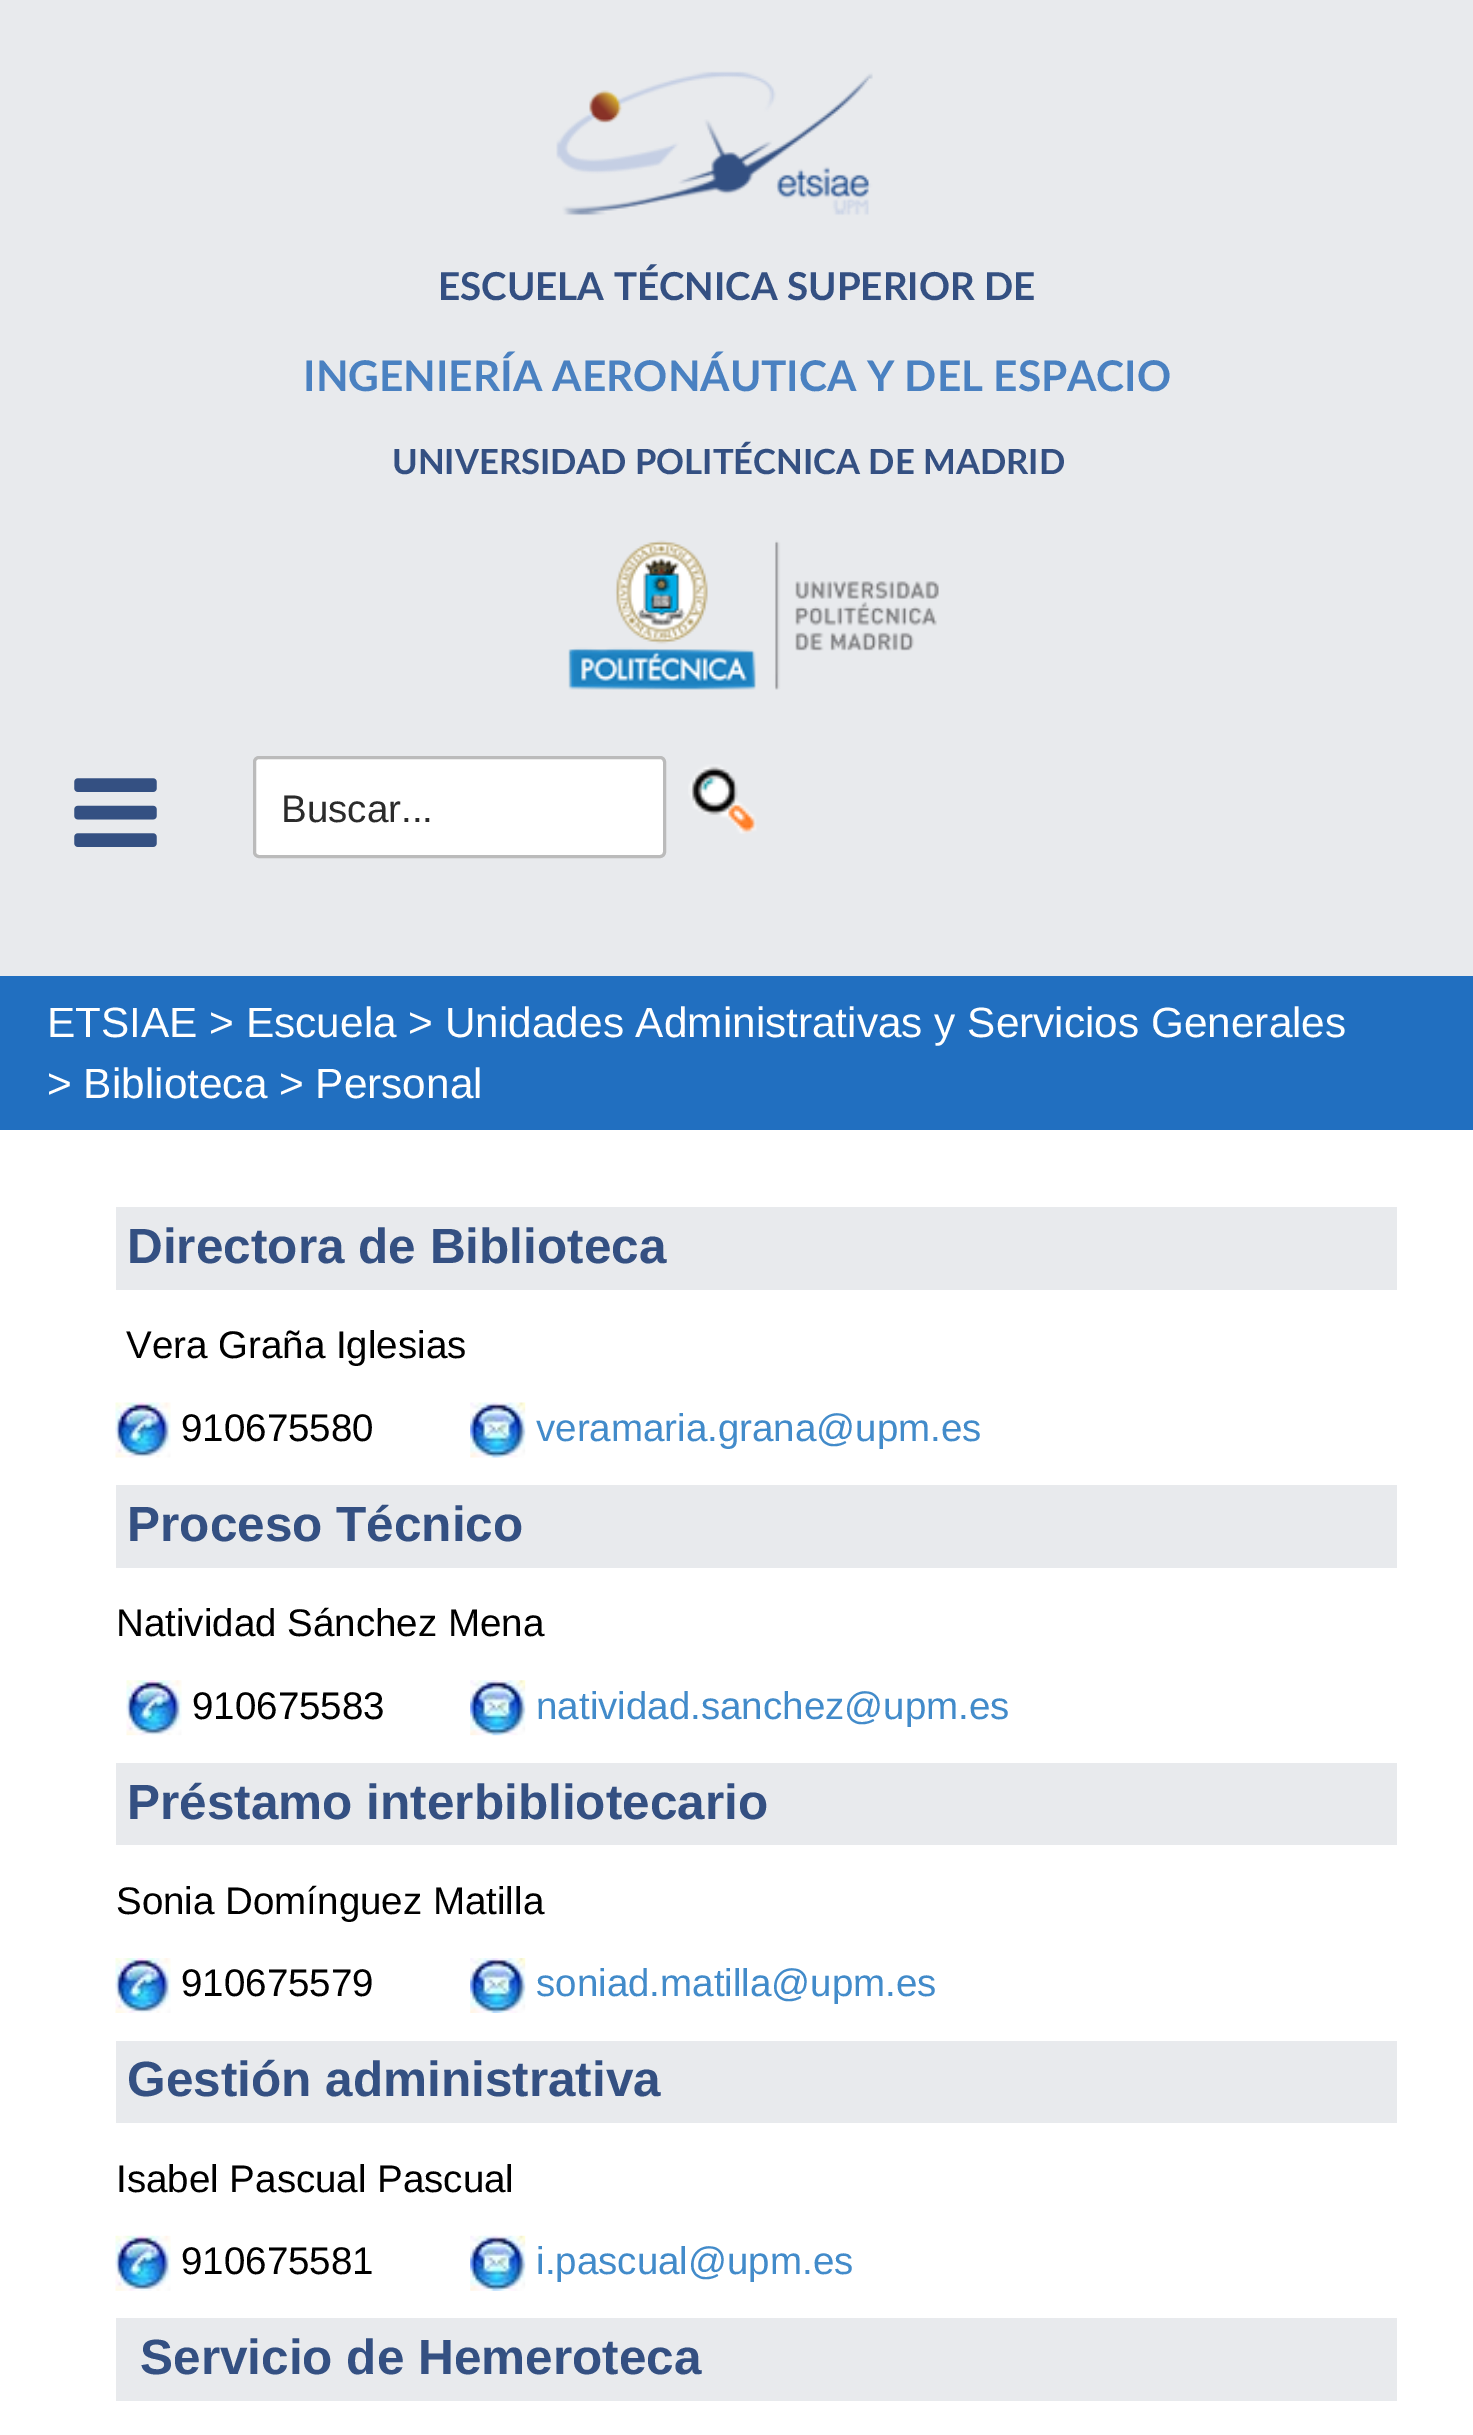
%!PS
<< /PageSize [1473 2435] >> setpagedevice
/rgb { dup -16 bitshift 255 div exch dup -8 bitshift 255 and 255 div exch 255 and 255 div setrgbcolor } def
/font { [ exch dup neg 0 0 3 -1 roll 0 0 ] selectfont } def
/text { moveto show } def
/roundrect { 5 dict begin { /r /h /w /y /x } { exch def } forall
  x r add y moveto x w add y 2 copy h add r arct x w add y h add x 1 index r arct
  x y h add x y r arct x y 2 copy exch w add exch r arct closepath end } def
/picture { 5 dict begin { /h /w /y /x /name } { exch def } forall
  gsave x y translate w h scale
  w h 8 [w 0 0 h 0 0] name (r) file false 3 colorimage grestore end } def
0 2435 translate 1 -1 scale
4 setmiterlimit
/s1 { /Lato-Bold 38.5 font 16#345082 rgb } def
/s2 { /Lato-Bold 42.35 font 16#4A81C1 rgb } def
/s3 { /Lato-Bold 34.6 font 16#345082 rgb } def
/s4 { /LiberationSans-Regular 38.5 font 16#2B2B2B rgb } def
/s5 { /LiberationSans-Regular 42.35 font 16#FFFFFF rgb } def
/s6 { /LiberationSans-Bold 49.5 font 16#345082 rgb } def
/s7 { /LiberationSans-Regular 38.5 font 16#000000 rgb } def
/s8 { /LiberationSans-Regular 38.5 font 16#428BCA rgb } def
16#FFFFFF rgb
0 0 1473 2435 rectfill
16#E8EAED rgb
0 0 1473 976 rectfill
(pic1.raw) 556 71 317 145 picture
s1
(ESCUELA TÉCNICA SUPERIOR DE) 438 300 text
s2
(INGENIERÍA AERONÁUTICA Y DEL ESPACIO) 303 391 text
s3
(UNIVERSIDAD POLITÉCNICA DE MADRID) 392 474 text
(pic2.raw) 568 540 371 150 picture
(pic3.raw) 74 778 83 69 picture
16#FFFFFF rgb
254.5 757.5 410 99 4.5 roundrect gsave fill grestore
16#BBBBBB rgb
3 setlinewidth
stroke
s4
(Buscar...) 281 822 text
(pic4.raw) 688 764 69 70 picture
16#216FC0 rgb
0 976 1473 154 rectfill
s5
(ETSIAE > Escuela > Unidades Administrativas y Servicios Generales) 47 1037 text
(> Biblioteca > Personal) 47 1098 text
16#E8EAED rgb
116 1207 1281 83 rectfill
s6
(Directora de Biblioteca) 127 1263 text
s7
(Vera Graña Iglesias) 126 1358 text
(pic5.raw) 115 1402 56 56 picture
(910675580) 181 1441 text
(pic6.raw) 470 1402 56 56 picture
s8
(veramaria.grana@upm.es) 536 1441 text
16#E8EAED rgb
116 1485 1281 83 rectfill
s6
(Proceso Técnico) 127 1541 text
s7
(Natividad Sánchez Mena) 116 1636 text
(pic7.raw) 126 1680 56 56 picture
(910675583) 192 1719 text
(pic8.raw) 470 1680 56 56 picture
s8
(natividad.sanchez@upm.es) 536 1719 text
16#E8EAED rgb
116 1763 1281 82 rectfill
s6
(Préstamo interbibliotecario) 127 1819 text
s7
(Sonia Domínguez Matilla) 116 1914 text
(pic9.raw) 115 1958 56 55 picture
(910675579) 181 1996 text
(pic10.raw) 470 1958 56 55 picture
s8
(soniad.matilla@upm.es) 536 1996 text
16#E8EAED rgb
116 2041 1281 82 rectfill
s6
(Gestión administrativa) 127 2096 text
s7
(Isabel Pascual Pascual) 116 2192 text
(pic11.raw) 115 2235 56 56 picture
(910675581) 181 2274 text
(pic12.raw) 470 2235 56 56 picture
s8
(i.pascual@upm.es) 536 2274 text
16#E8EAED rgb
116 2318 1281 83 rectfill
s6
(Servicio de Hemeroteca) 140 2374 text
showpage
